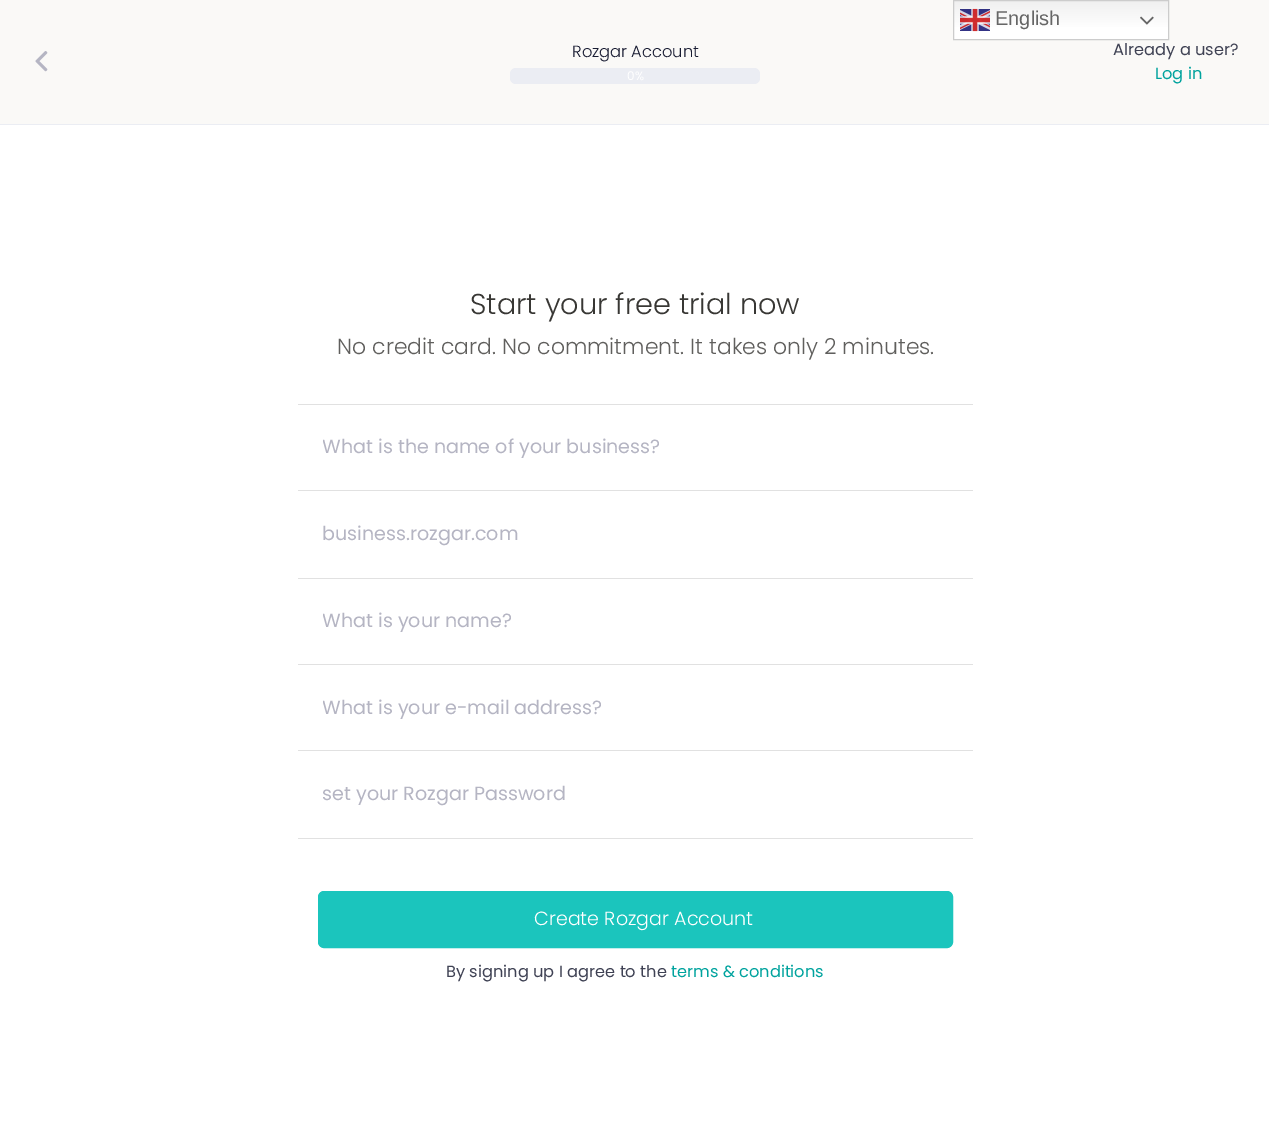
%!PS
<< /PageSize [1269 1128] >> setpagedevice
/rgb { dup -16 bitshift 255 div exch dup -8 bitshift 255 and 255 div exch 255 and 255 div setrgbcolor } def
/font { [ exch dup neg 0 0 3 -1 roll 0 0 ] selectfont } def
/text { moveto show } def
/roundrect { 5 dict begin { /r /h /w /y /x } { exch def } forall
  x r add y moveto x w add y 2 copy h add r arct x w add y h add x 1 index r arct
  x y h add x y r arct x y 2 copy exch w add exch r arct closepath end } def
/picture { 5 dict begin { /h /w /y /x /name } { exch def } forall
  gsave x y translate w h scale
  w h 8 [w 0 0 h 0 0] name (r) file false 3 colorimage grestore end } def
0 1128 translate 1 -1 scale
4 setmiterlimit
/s1 { /LiberationSans-Regular 20 font 16#666666 rgb } def
/s2 { /Poppins-Light 16.25 font 16#181C32 rgb } def
/s3 { /Poppins-Regular 12 font 16#FFFFFF rgb } def
/s4 { /Poppins-Regular 16.25 font 16#3F4254 rgb } def
/s5 { /Poppins-Regular 16.25 font 16#00A39E rgb } def
/s6 { /Poppins-Light 28.75 font 16#383734 rgb } def
/s7 { /Poppins-Light 21.95 font 16#605F5D rgb } def
/s8 { /Poppins-Regular 19.1 font 16#B5B5C3 rgb } def
/s9 { /Poppins-Light 19.1 font 16#FFFFFF rgb } def
16#FFFFFF rgb
0 0 1269 1128 rectfill
16#FAF9F7 rgb
0 0 1269 124 rectfill
gsave 954 1 moveto 1168 1 lineto 1168 39 lineto 954 39 lineto closepath clip newpath
<< /ShadingType 2 /ColorSpace /DeviceRGB /Coords [1061 0 1061 40] /Extend [true true] /Function << /FunctionType 3 /Domain [0 1] /Functions [<< /FunctionType 2 /Domain [0 1] /C0 [0.937 0.937 0.937] /C1 [1 1 1] /N 1 >> << /FunctionType 2 /Domain [0 1] /C0 [1 1 1] /C1 [1 1 1] /N 1 >>] /Bounds [0.7] /Encode [0 1 0 1] >> >> shfill grestore
16#CCCCCC rgb
953.5 0.5 215 39 rectstroke
(pic1.raw) 960 8 30 24 picture
s1
(English) 995 25 text
(pic2.raw) 1140 16 14 9 picture
16#EBEDF3 rgb
0 124 1269 1 rectfill
(pic3.raw) 35 51 13 21 picture
s2
(Rozgar Account) 572 57 text
16#EBEDF3 rgb
510 68 250 16 6 roundrect fill
s3
(0%) 627 80 text
s4
(Already a user?) 1113 55 text
s5
(Log in) 1155 79 text
s6
(Start your free trial now) 470 314 text
16#E1E1E1 rgb
298 404 675 1 rectfill
s7
(No credit card. No commitment. It takes only 2 minutes.) 337 354 text
16#E1E1E1 rgb
298 490 675 1 rectfill
gsave
323 433 626 28 rectclip
s8
(What is the name of your business?) 322 453 text
grestore
298 578 675 1 rectfill
s8
(business.rozgar.com) 322 540 text
16#E1E1E1 rgb
298 664 675 1 rectfill
gsave
323 605 626 29 rectclip
s8
(What is your name?) 322 627 text
grestore
298 750 675 1 rectfill
gsave
323 693 626 28 rectclip
s8
(What is your e-mail address?) 322 714 text
grestore
298 838 675 1 rectfill
s8
(set your Rozgar Password) 322 800 text
16#1BC5BD rgb
318.5 891.5 634 56 5.5 roundrect gsave fill grestore
stroke
s9
(Create Rozgar Account) 534 925 text
s4
(By signing up I agree to the) 446 977 text
s5
(terms & conditions) 671 977 text
showpage
